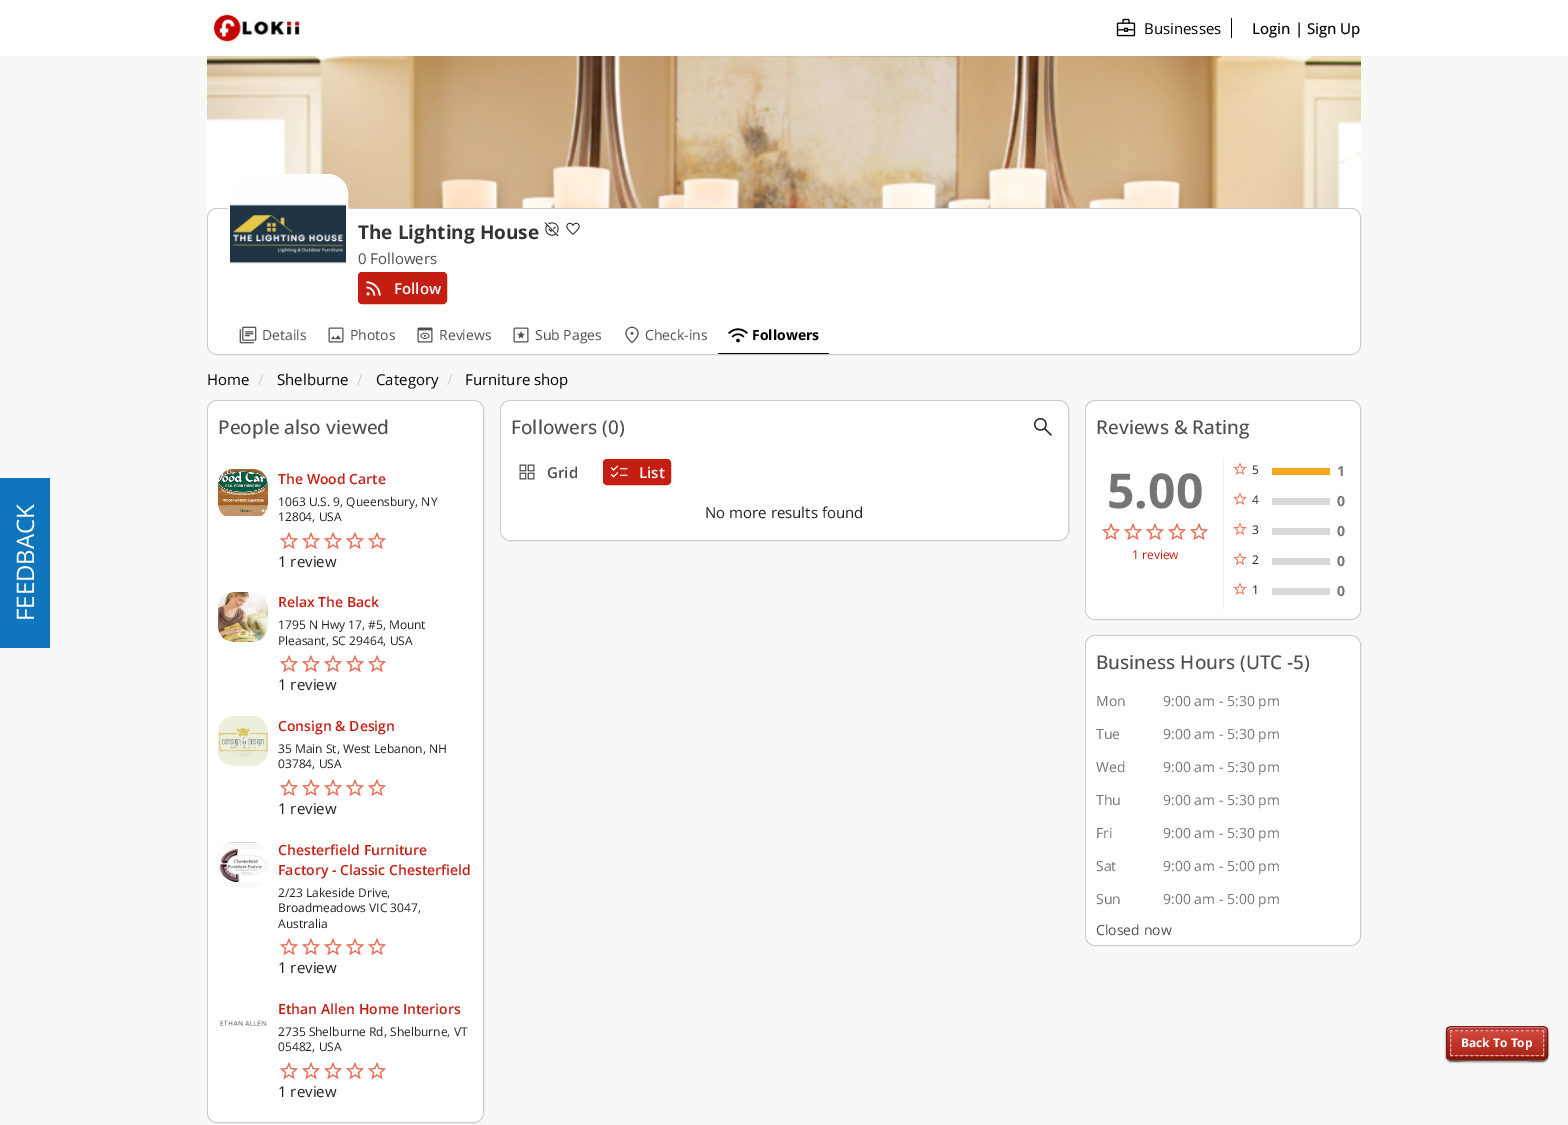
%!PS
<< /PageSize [1568 1125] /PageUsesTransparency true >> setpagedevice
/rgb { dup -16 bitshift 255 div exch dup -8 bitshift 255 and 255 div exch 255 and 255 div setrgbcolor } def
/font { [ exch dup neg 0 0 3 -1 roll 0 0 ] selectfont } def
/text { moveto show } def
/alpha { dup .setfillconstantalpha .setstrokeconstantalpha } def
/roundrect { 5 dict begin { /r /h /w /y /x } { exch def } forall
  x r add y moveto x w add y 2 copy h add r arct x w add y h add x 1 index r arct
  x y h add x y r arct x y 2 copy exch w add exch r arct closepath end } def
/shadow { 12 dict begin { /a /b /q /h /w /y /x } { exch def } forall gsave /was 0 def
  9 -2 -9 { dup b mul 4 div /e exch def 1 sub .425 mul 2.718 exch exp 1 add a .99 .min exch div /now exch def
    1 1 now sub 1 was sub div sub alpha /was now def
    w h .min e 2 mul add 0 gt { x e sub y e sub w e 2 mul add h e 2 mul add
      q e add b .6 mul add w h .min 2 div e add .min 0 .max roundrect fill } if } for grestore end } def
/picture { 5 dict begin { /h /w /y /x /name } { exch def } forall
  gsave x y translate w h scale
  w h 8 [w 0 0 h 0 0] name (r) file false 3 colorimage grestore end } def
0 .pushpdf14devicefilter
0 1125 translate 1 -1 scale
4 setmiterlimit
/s1 { /OpenSans-Regular 15 font 16#000000 rgb } def
/s2 { /OpenSans-Medium 15 font 16#000000 rgb } def
/s3 { /OpenSans-Bold 19 font 16#333333 rgb } def
/s4 { /OpenSans-Regular 15 font 16#4F4F4F rgb } def
/s5 { /OpenSans-SemiBold 15 font 16#FFFFFF rgb } def
/s6 { /OpenSans-Regular 14 font 16#4F4F4F rgb } def
/s7 { /OpenSans-Bold 14 font 16#000000 rgb } def
/s8 { /OpenSans-Regular 15 font 16#CCCCCC rgb } def
/s9 { /OpenSans-Medium 19 font 16#4F4F4F rgb } def
/s10 { /OpenSans-SemiBold 14 font 16#C41E13 rgb } def
/s11 { /OpenSans-Regular 12 font 16#212121 rgb } def
/s12 { /OpenSans-Regular 15 font 16#212121 rgb } def
/s13 { /OpenSans-SemiBold 15 font 16#4F4F4F rgb } def
/s14 { /OpenSans-Bold 48 font 16#757575 rgb } def
/s15 { /OpenSans-Regular 12 font 16#C41E13 rgb } def
/s16 { /OpenSans-Bold 14 font 16#757575 rgb } def
/s17 { /OpenSans-Regular 14 font 16#757575 rgb } def
/s18 { /OpenSans-Bold 12 font 16#FFFFFF rgb } def
16#F8F8F8 rgb
0 0 1568 1125 rectfill
16#FFFFFF rgb
207 -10 1154 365 10 roundrect fill
0 0 1568 56 rectfill
(pic1.raw) 213 14 87 30 picture
(pic2.raw) 1116 18 20 19 picture
s1
(Businesses) 1144 34 text
1231 18 1 20 rectfill
s2
(Login | Sign Up) 1252 34 text
16#0F75BD rgb
0 478 50 170 rectfill
/OpenSans-Regular 24 font
16#FFFFFF rgb
gsave 34 621 translate -90 rotate 0 0 moveto (FEEDBACK) show grestore
(pic3.raw) 207 56 1154 152 picture
16#CCCCCC rgb
207.5 208.5 1153 146 9.5 roundrect stroke
16#FFFFFF rgb
208 209 1152 145 10 roundrect fill
2 setlinewidth
229 175 118 118 19 roundrect stroke
(pic4.raw) 230 176 116 88 picture
s3
(The Lighting House) 358 239 text
(pic5.raw) 544 222 15 15 picture
(pic6.raw) 566 222 14 13 picture
s4
(0 Followers) 358 264 text
16#C41E13 rgb
358.5 272.5 88 31 3.5 roundrect gsave fill grestore
1 setlinewidth
stroke
(pic7.raw) 366 281 15 15 picture
s5
(Follow) 394 294 text
(pic8.raw) 239 326 18 18 picture
s6
(Details) 262 340 text
(pic9.raw) 328 327 16 16 picture
(Photos) 350 340 text
(pic10.raw) 417 327 16 16 picture
(Reviews) 439 340 text
(pic11.raw) 513 327 16 16 picture
(Sub Pages) 535 340 text
(pic12.raw) 625 326 14 18 picture
(Check-ins) 645 340 text
16#000000 rgb
718 353 111 1 rectfill
(pic13.raw) 728 328 20 15 picture
s7
(Followers) 752 340 text
s1
(Home) 207 385 text
s8
(/) 258 385 text
s1
(Shelburne) 277 385 text
s8
(/) 357 385 text
s1
(Category) 376 385 text
s8
(/) 447 385 text
s1
(Furniture shop) 465 385 text
16#CCCCCC rgb
207.5 400.5 276 722 9.5 roundrect stroke
16#FFFFFF rgb
218 401 moveto 473 401 lineto 478.5 401 483 405.5 483 411 curveto 483 449 lineto 208 449 lineto 208 411 lineto 208 405.5 212.5 401 218 401 curveto closepath fill
s9
(People also viewed) 218 434 text
16#FFFFFF rgb
208 449 moveto 483 449 lineto 483 1112 lineto 483 1117.5 478.5 1122 473 1122 curveto 218 1122 lineto 212.5 1122 208 1117.5 208 1112 curveto closepath fill
(pic14.raw) 218 469 50 47 picture
s10
(The Wood Carte) 278 484 text
s11
(1063 U.S. 9, Queensbury, NY) 278 506 text
(12804, USA) 278 521 text
(pic15.raw) 280 532 18 17 picture
(pic15.raw) 302 532 18 17 picture
(pic15.raw) 324 532 18 17 picture
(pic15.raw) 346 532 18 17 picture
(pic15.raw) 368 532 18 17 picture
(pic16.raw) 280 532 18 18 picture
(pic16.raw) 302 532 18 18 picture
(pic16.raw) 324 532 18 18 picture
(pic16.raw) 346 532 18 18 picture
(pic16.raw) 368 532 18 18 picture
s12
(1 review) 278 567 text
(pic17.raw) 218 592 50 50 picture
s10
(Relax The Back) 278 607 text
s11
(1795 N Hwy 17, #5, Mount) 278 629 text
(Pleasant, SC 29464, USA) 278 645 text
(pic15.raw) 280 655 18 17 picture
(pic15.raw) 302 655 18 17 picture
(pic15.raw) 324 655 18 17 picture
(pic15.raw) 346 655 18 17 picture
(pic15.raw) 368 655 18 17 picture
(pic16.raw) 280 655 18 18 picture
(pic16.raw) 302 655 18 18 picture
(pic16.raw) 324 655 18 18 picture
(pic16.raw) 346 655 18 18 picture
(pic16.raw) 368 655 18 18 picture
s12
(1 review) 278 690 text
(pic18.raw) 218 716 50 50 picture
s10
(Consign & Design) 278 731 text
s11
(35 Main St, West Lebanon, NH) 278 753 text
(03784, USA) 278 768 text
(pic15.raw) 280 779 18 17 picture
(pic15.raw) 302 779 18 17 picture
(pic15.raw) 324 779 18 17 picture
(pic15.raw) 346 779 18 17 picture
(pic15.raw) 368 779 18 17 picture
(pic16.raw) 280 779 18 18 picture
(pic16.raw) 302 779 18 18 picture
(pic16.raw) 324 779 18 18 picture
(pic16.raw) 346 779 18 18 picture
(pic16.raw) 368 779 18 18 picture
s12
(1 review) 278 814 text
(pic19.raw) 218 842 50 45 picture
s10
(Chesterfield Furniture) 278 855 text
(Factory - Classic Chesterfield) 278 875 text
s11
(2/23 Lakeside Drive,) 278 897 text
(Broadmeadows VIC 3047,) 278 912 text
(Australia) 278 928 text
(pic15.raw) 280 938 18 17 picture
(pic15.raw) 302 938 18 17 picture
(pic15.raw) 324 938 18 17 picture
(pic15.raw) 346 938 18 17 picture
(pic15.raw) 368 938 18 17 picture
(pic16.raw) 280 938 18 18 picture
(pic16.raw) 302 938 18 18 picture
(pic16.raw) 324 938 18 18 picture
(pic16.raw) 346 938 18 18 picture
(pic16.raw) 368 938 18 18 picture
s12
(1 review) 278 973 text
(pic20.raw) 219 1020 48 6 picture
s10
(Ethan Allen Home Interiors) 278 1014 text
s11
(2735 Shelburne Rd, Shelburne, VT) 278 1036 text
(05482, USA) 278 1051 text
(pic15.raw) 280 1062 18 17 picture
(pic15.raw) 302 1062 18 17 picture
(pic15.raw) 324 1062 18 17 picture
(pic15.raw) 346 1062 18 17 picture
(pic15.raw) 368 1062 18 17 picture
(pic16.raw) 280 1062 18 18 picture
(pic16.raw) 302 1062 18 18 picture
(pic16.raw) 324 1062 18 18 picture
(pic16.raw) 346 1062 18 18 picture
(pic16.raw) 368 1062 18 18 picture
s12
(1 review) 278 1097 text
16#CCCCCC rgb
500.5 400.5 568 140 9.5 roundrect stroke
16#FFFFFF rgb
511 401 moveto 1058 401 lineto 1063.5 401 1068 405.5 1068 411 curveto 1068 449 lineto 501 449 lineto 501 411 lineto 501 405.5 505.5 401 511 401 curveto closepath fill
s9
(Followers \(0\)) 511 434 text
(pic21.raw) 1034 418 18 18 picture
16#FFFFFF rgb
501 449 moveto 1068 449 lineto 1068 530 lineto 1068 535.5 1063.5 540 1058 540 curveto 511 540 lineto 505.5 540 501 535.5 501 530 curveto closepath fill
(pic22.raw) 519 464 16 16 picture
s13
(Grid) 547 478 text
16#C41E13 rgb
603.5 459.5 67 25 3.5 roundrect gsave fill grestore
stroke
(pic23.raw) 610 465 18 13 picture
s5
(List) 639 478 text
s12
(No more results found) 705 518 text
16#CCCCCC rgb
1085.5 400.5 275 219 9.5 roundrect stroke
16#FFFFFF rgb
1096 401 moveto 1350 401 lineto 1355.5 401 1360 405.5 1360 411 curveto 1360 449 lineto 1086 449 lineto 1086 411 lineto 1086 405.5 1090.5 401 1096 401 curveto closepath fill
s9
(Reviews & Rating) 1096 434 text
16#FFFFFF rgb
1086 449 moveto 1360 449 lineto 1360 609 lineto 1360 614.5 1355.5 619 1350 619 curveto 1096 619 lineto 1090.5 619 1086 614.5 1086 609 curveto closepath fill
s14
(5.00) 1107 508 text
(pic15.raw) 1102 523 18 17 picture
(pic15.raw) 1124 523 18 17 picture
(pic15.raw) 1146 523 18 17 picture
(pic15.raw) 1168 523 18 17 picture
(pic15.raw) 1190 523 18 17 picture
(pic16.raw) 1102 523 18 18 picture
(pic16.raw) 1124 523 18 18 picture
(pic16.raw) 1146 523 18 18 picture
(pic16.raw) 1168 523 18 18 picture
(pic16.raw) 1190 523 18 18 picture
s15
(1 review) 1132 559 text
16#EFEFEF rgb
1223 459 1 150 rectfill
(pic24.raw) 1233 462 14 13 picture
s11
(5) 1252 474 text
16#F5A623 rgb
1272 468 58 7 rectfill
s16
(1) 1337 476 text
(pic24.raw) 1233 492 14 13 picture
s11
(4) 1252 504 text
16#D8D8D8 rgb
1272 498 58 7 rectfill
s16
(0) 1337 506 text
(pic24.raw) 1233 522 14 13 picture
s11
(3) 1252 534 text
16#D8D8D8 rgb
1272 528 58 7 rectfill
s16
(0) 1337 536 text
(pic24.raw) 1233 552 14 13 picture
s11
(2) 1252 564 text
16#D8D8D8 rgb
1272 558 58 7 rectfill
s16
(0) 1337 566 text
(pic24.raw) 1233 582 14 13 picture
s11
(1) 1252 594 text
16#D8D8D8 rgb
1272 588 58 7 rectfill
s16
(0) 1337 596 text
16#CCCCCC rgb
1085.5 635.5 275 310 9.5 roundrect stroke
16#FFFFFF rgb
1096 636 moveto 1350 636 lineto 1355.5 636 1360 640.5 1360 646 curveto 1360 684 lineto 1086 684 lineto 1086 646 lineto 1086 640.5 1090.5 636 1096 636 curveto closepath fill
s9
(Business Hours \(UTC -5\)) 1096 669 text
16#FFFFFF rgb
1086 684 moveto 1360 684 lineto 1360 935 lineto 1360 940.5 1355.5 945 1350 945 curveto 1096 945 lineto 1090.5 945 1086 940.5 1086 935 curveto closepath fill
s17
(Mon) 1096 706 text
(9:00 am - 5:30 pm) 1163 706 text
(Tue) 1096 739 text
(9:00 am - 5:30 pm) 1163 739 text
(Wed) 1096 772 text
(9:00 am - 5:30 pm) 1163 772 text
(Thu) 1096 805 text
(9:00 am - 5:30 pm) 1163 805 text
(Fri) 1096 838 text
(9:00 am - 5:30 pm) 1163 838 text
(Sat) 1096 871 text
(9:00 am - 5:00 pm) 1163 871 text
(Sun) 1096 904 text
(9:00 am - 5:00 pm) 1163 904 text
s6
(Closed now) 1096 935 text
16#010101 rgb
1446 1028 102 34 5 1 0.5 shadow
0.7 alpha
1446 1055 moveto 1446 1065 1461 1061 1466 1061 curveto 1528 1061 lineto 1533 1061 1548 1065 1548 1055 curveto 1548 1058 1546 1060 1543 1060 curveto 1451 1060 lineto 1448 1060 1446 1058 1446 1055 curveto closepath fill
0.3 alpha
16#FFFFFF rgb
1446 1055 moveto 1446 1065 1461 1061 1466 1061 curveto 1528 1061 lineto 1533 1061 1548 1065 1548 1055 curveto 1548 1058 1546 1060 1543 1060 curveto 1451 1060 lineto 1448 1060 1446 1058 1446 1055 curveto closepath fill
gsave
1446 1026 102 34 5 roundrect clip newpath
1 alpha
gsave 1446 1027 moveto 1548 1027 lineto 1548 1059 lineto 1446 1059 lineto closepath clip newpath
<< /ShadingType 2 /ColorSpace /DeviceRGB /Coords [1497 1027 1497 1059] /Extend [true true] /Function << /FunctionType 2 /Domain [0 1] /C0 [0.733 0.259 0.235] /C1 [0.518 0.09 0.035] /N 1 >> >> shfill grestore
grestore
0.5 alpha
1451 1028 moveto 1543 1028 lineto 1545 1028 1547 1030 1547 1032 curveto 1547 1023 1532 1027 1528 1027 curveto 1466 1027 lineto 1462 1027 1447 1023 1447 1032 curveto 1447 1030 1449 1028 1451 1028 curveto closepath fill
1 alpha
16#841709 rgb
1446.5 1026.5 101 33 4.5 roundrect stroke
gsave 1450 1030 moveto 1544 1030 lineto 1544 1031 lineto 1450 1031 lineto closepath clip newpath
<< /ShadingType 2 /ColorSpace /DeviceRGB /Coords [1497 1007 1497 1031] /Extend [true true] /Function << /FunctionType 2 /Domain [0 1] /C0 [0.831 0.278 0.239] /C1 [0.667 0.153 0.098] /N 1 >> >> shfill grestore
gsave 1450 1031 moveto 1544 1031 lineto 1544 1055 lineto 1450 1055 lineto closepath clip newpath
<< /ShadingType 2 /ColorSpace /DeviceRGB /Coords [1497 1031 1497 1055] /Extend [true true] /Function << /FunctionType 2 /Domain [0 1] /C0 [0.831 0.278 0.239] /C1 [0.667 0.153 0.098] /N 1 >> >> shfill grestore
gsave 1450 1055 moveto 1544 1055 lineto 1544 1056 lineto 1450 1056 lineto closepath clip newpath
<< /ShadingType 2 /ColorSpace /DeviceRGB /Coords [1497 1055 1497 1079] /Extend [true true] /Function << /FunctionType 2 /Domain [0 1] /C0 [0.831 0.278 0.239] /C1 [0.667 0.153 0.098] /N 1 >> >> shfill grestore
16#EBA1A3 rgb
[3 2.06] 0 setdash
1450 1030.5 moveto 1544 1030.5 lineto stroke
[3 1.6] 0 setdash
1543.5 1030 moveto 1543.5 1056 lineto stroke
[3 2.06] 0 setdash
1450 1055.5 moveto 1544 1055.5 lineto stroke
[3 1.6] 0 setdash
1450.5 1030 moveto 1450.5 1056 lineto stroke
s18
(Back To Top) 1461 1047 text
.poppdf14devicefilter showpage
